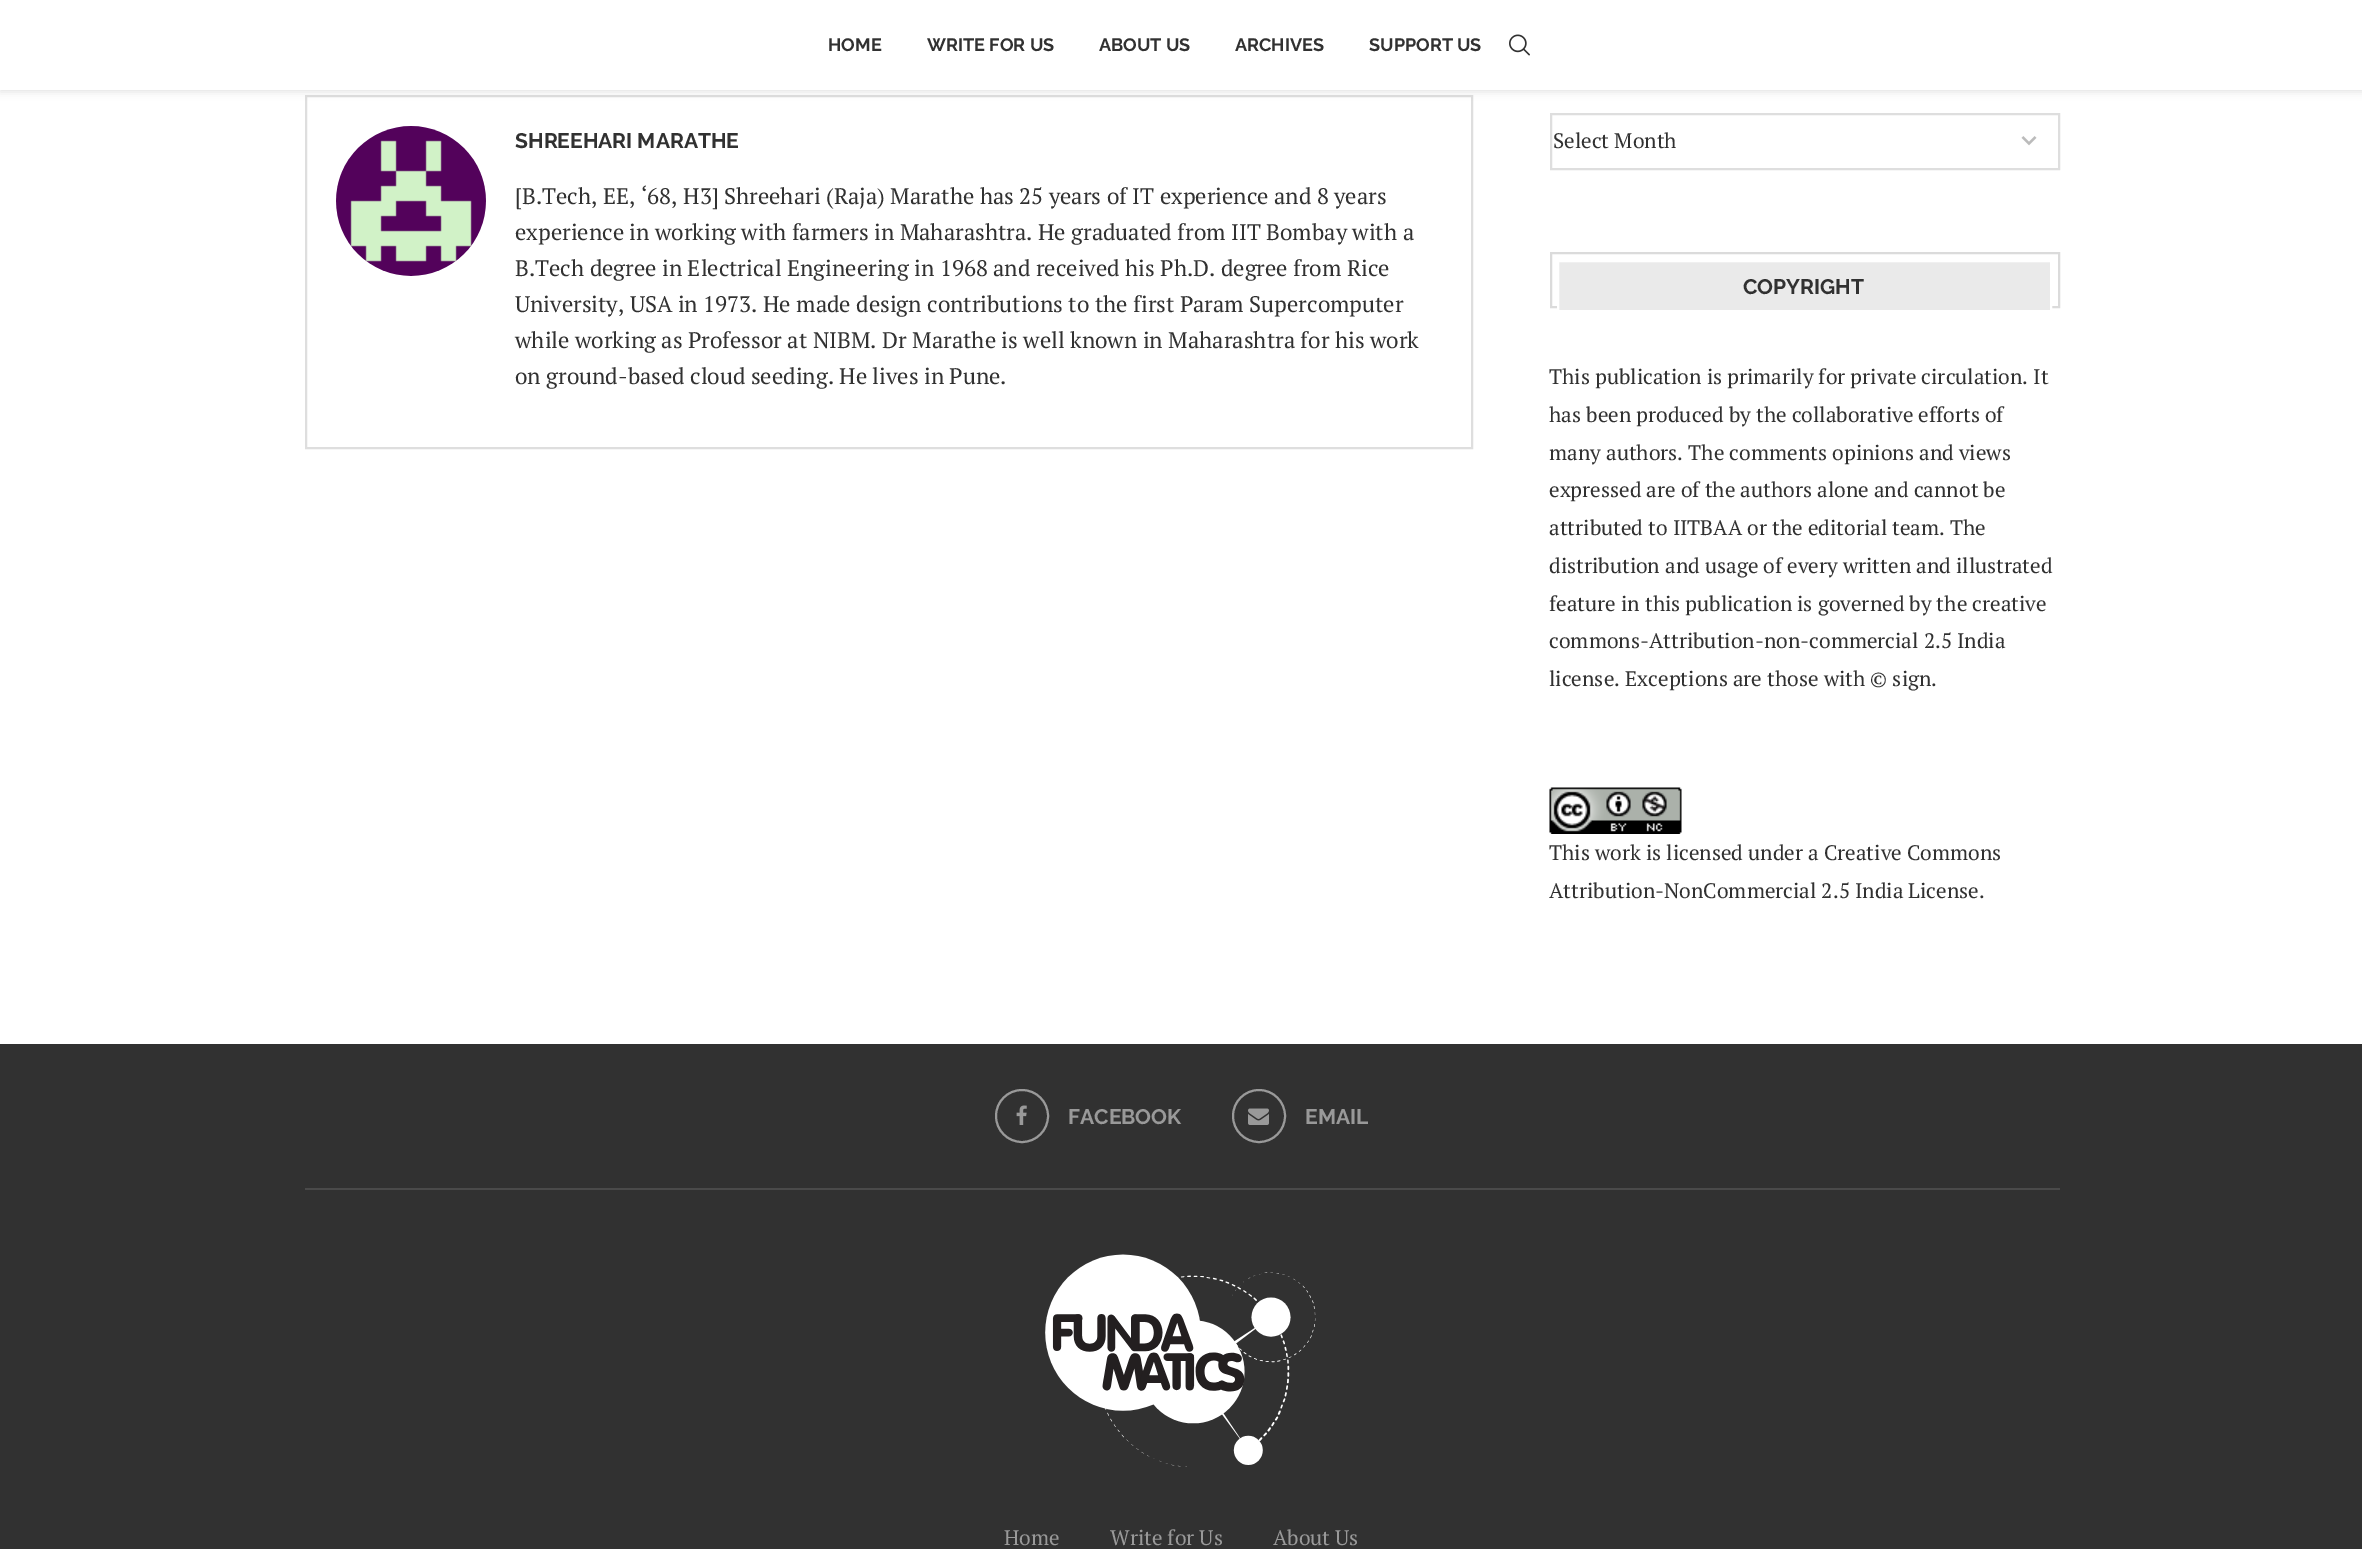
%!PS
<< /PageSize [2362 1549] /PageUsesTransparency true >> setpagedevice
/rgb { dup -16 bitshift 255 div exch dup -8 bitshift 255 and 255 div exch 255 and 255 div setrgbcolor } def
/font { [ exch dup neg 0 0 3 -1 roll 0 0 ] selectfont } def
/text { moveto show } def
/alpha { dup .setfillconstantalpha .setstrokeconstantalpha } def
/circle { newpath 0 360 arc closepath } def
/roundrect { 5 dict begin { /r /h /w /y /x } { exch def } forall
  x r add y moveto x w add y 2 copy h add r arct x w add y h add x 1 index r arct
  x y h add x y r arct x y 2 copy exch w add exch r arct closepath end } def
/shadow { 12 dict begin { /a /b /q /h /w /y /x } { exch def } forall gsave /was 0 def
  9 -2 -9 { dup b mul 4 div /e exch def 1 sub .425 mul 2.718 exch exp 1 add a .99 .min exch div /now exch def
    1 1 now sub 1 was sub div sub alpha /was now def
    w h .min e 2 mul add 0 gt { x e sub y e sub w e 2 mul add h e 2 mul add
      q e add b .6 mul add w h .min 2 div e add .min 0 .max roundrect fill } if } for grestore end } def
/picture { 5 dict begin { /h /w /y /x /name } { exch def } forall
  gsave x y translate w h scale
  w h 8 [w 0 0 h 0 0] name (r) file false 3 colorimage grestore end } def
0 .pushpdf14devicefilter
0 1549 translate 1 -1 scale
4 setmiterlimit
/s1 { /Raleway-Thin 18 font 16#313131 rgb } def
/s2 { /Raleway-Thin 21 font 16#313131 rgb } def
/s3 { /PTSerif-Regular 22.5 font 16#313131 rgb } def
/s4 { /PTSerif-Regular 21 font 16#313131 rgb } def
/s5 { /Raleway-Thin 21 font 16#999999 rgb } def
/s6 { /PTSerif-Regular 21 font 16#999999 rgb } def
16#FFFFFF rgb
0 0 2362 1549 rectfill
16#DEDEDE rgb
2 setlinewidth
306 96 1166 352 rectstroke
16#BEBEBE rgb
0 2 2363 90 0 4 0.46 shadow
16#FFFFFF rgb
0 0 2362 90 rectfill
s1
(HOME) 828 51 text
(WRITE FOR US) 927 51 text
(ABOUT US) 1099 51 text
(ARCHIVES) 1235 51 text
(SUPPORT US) 1369 51 text
(pic1.raw) 1509 34 21 22 picture
(pic2.raw) 336 126 150 150 picture
s2
(SHREEHARI MARATHE) 515 148 text
s3
([B.Tech, EE, ‘68, H3] Shreehari \(Raja\) Marathe has 25 years of IT experience and 8 years) 515 204 text
(experience in working with farmers in Maharashtra. He graduated from IIT Bombay with a) 515 240 text
(B.Tech degree in Electrical Engineering in 1968 and received his Ph.D. degree from Rice) 515 276 text
(University, USA in 1973. He made design contributions to the first Param Supercomputer) 515 312 text
(while working as Professor at NIBM. Dr Marathe is well known in Maharashtra for his work) 515 348 text
(on ground-based cloud seeding. He lives in Pune.) 515 384 text
16#BBBBBB rgb
2.2 setlinewidth
2022.5 137 moveto 2029 143.5 lineto 2035.5 137 lineto stroke
16#DEDEDE rgb
2 setlinewidth
1551 114 508 55 rectstroke
s4
(Select Month) 1553 148 text
16#DBDBDB rgb
1551 253 508 54 rectstroke
16#EAEAEA rgb
1558 261 moveto 2051 261 lineto 2051 311 lineto 1558 311 lineto closepath gsave fill grestore
16#FFFFFF rgb
stroke
s2
(COPYRIGHT) 1743 294 text
s4
(This publication is primarily for private circulation. It) 1549 384 text
(has been produced by the collaborative efforts of) 1549 422 text
(many authors. The comments opinions and views) 1549 460 text
(expressed are of the authors alone and cannot be) 1549 497 text
(attributed to IITBAA or the editorial team. The) 1549 535 text
(distribution and usage of every written and illustrated) 1549 573 text
(feature in this publication is governed by the creative) 1549 611 text
(commons-Attribution-non-commercial 2.5 India) 1549 648 text
(license. Exceptions are those with © sign.) 1549 686 text
(pic3.raw) 1549 787 133 47 picture
(This work is licensed under a Creative Commons) 1549 860 text
(Attribution-NonCommercial 2.5 India License.) 1549 898 text
0 1044 2362 505 rectfill
16#4A4A4A rgb
305 1188 1755 2 rectfill
16#999999 rgb
1022 1116 26 circle stroke
(pic4.raw) 1016 1105 11 20 picture
s5
(FACEBOOK) 1068 1124 text
1259 1116 26 circle stroke
(pic5.raw) 1248 1108 21 17 picture
(EMAIL) 1305 1124 text
(pic6.raw) 1045 1254 271 213 picture
s6
(Home) 1004 1545 text
(Write for Us) 1110 1545 text
(About Us) 1273 1545 text
.poppdf14devicefilter showpage
